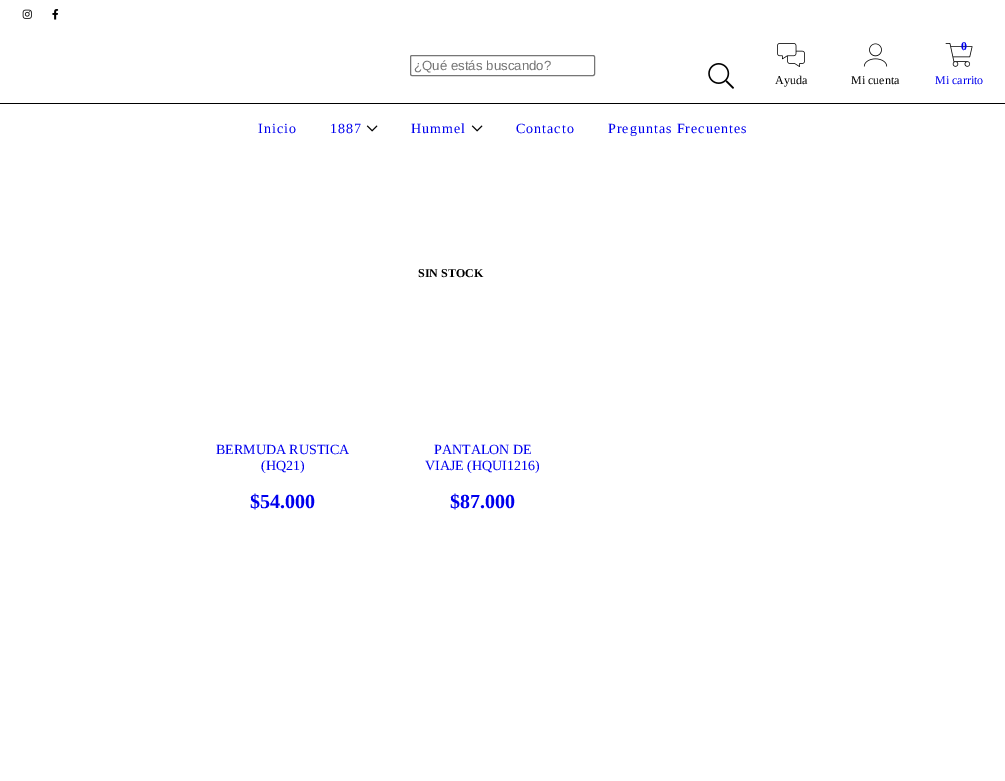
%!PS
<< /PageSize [1005 781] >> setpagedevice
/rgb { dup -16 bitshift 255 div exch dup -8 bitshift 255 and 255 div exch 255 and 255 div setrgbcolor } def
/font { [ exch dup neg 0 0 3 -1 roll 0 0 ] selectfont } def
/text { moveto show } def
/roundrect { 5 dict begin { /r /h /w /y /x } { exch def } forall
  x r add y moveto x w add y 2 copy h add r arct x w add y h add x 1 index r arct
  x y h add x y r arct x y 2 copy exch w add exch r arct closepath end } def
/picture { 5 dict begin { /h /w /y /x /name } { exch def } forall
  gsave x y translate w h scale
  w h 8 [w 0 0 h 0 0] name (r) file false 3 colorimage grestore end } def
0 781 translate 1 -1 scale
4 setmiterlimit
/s1 { /LiberationSans-Regular 13.25 font 16#757575 rgb } def
/s2 { /LiberationSerif-Regular 12 font 16#000000 rgb } def
/s3 { /LiberationSerif-Bold 12 font 16#0000EE rgb } def
/s4 { /LiberationSerif-Regular 12 font 16#0000EE rgb } def
/s5 { /LiberationSerif-Regular 14 font 16#0000EE rgb } def
/s6 { /LiberationSerif-Bold 20 font 16#0000EE rgb } def
/s7 { /LiberationSerif-Bold 12 font 16#000000 rgb } def
16#FFFFFF rgb
0 0 1005 781 rectfill
(pic1.raw) 22 9 10 10 picture
(pic2.raw) 52 9 7 11 picture
16#767676 rgb
410.5 55.5 184 20 1.5 roundrect stroke
s1
(¿Qué estás buscando?) 414 70 text
(pic3.raw) 708 63 26 26 picture
(pic4.raw) 777 43 28 24 picture
s2
(Ayuda) 775 84 text
(pic5.raw) 863 43 25 24 picture
(Mi cuenta) 851 84 text
(pic6.raw) 945 43 28 24 picture
s3
(0) 961 50 text
s4
(Mi carrito) 935 84 text
16#000000 rgb
0 103 1005 1 rectfill
/LiberationSerif-Regular 14 font
16#0000EE rgb
258 133 moveto 1 0 (Inicio) ashow
330 133 moveto 1 0 (1887) ashow
(pic7.raw) 366 125 12 7 picture
411 133 moveto 1 0 (Hummel) ashow
(pic7.raw) 471 125 12 7 picture
516 133 moveto 1 0 (Contacto) ashow
608 133 moveto 1 0 (Preguntas Frecuentes) ashow
(BERMUDA RUSTICA) 216 454 text
(\(HQ21\)) 261 470 text
s6
($54.000) 250 508 text
s7
(SIN STOCK) 418 277 text
s5
(PANTALON DE) 434 454 text
(VIAJE \(HQUI1216\)) 425 470 text
s6
($87.000) 450 508 text
showpage
